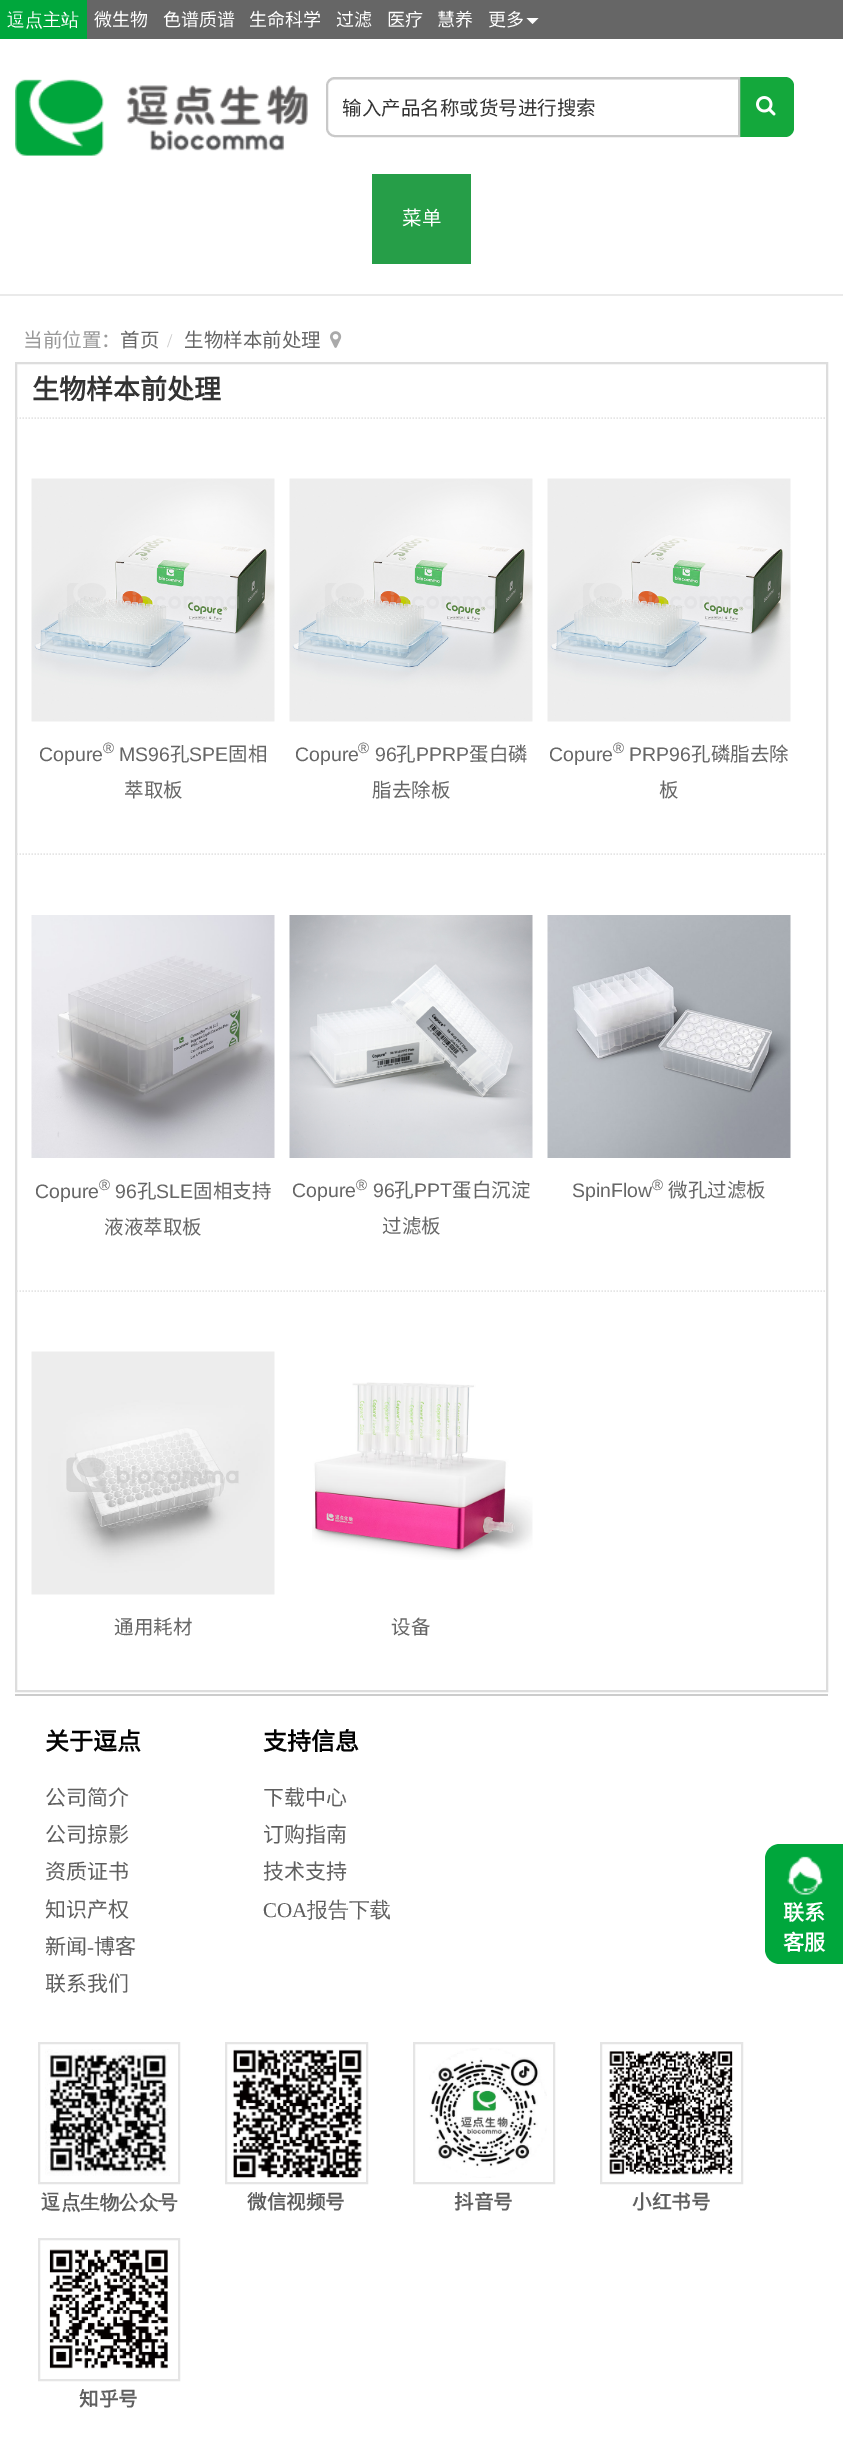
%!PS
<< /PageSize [843 2458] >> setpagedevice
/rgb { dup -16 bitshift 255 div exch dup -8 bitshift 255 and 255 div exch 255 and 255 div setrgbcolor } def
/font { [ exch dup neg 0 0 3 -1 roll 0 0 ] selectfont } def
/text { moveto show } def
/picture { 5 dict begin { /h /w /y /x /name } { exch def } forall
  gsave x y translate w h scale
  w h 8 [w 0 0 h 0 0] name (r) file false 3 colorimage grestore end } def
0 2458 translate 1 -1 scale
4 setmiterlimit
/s1 { /WenQuanYiZenHei-Medium 18 font 16#FFFFFF rgb } def
/s2 { /NotoSansCJKSC-Regular 18 font 16#FFFFFF rgb } def
/s3 { /NotoSansCJKSC-Regular 19.5 font 16#333333 rgb } def
/s4 { /NotoSansCJKSC-Regular 19.5 font 16#FFFFFF rgb } def
/s5 { /NotoSansCJKSC-Regular 19.5 font 16#999999 rgb } def
/s6 { /NotoSansCJKSC-Regular 19.5 font 16#666666 rgb } def
/s7 { /LiberationSerif-Regular 19.5 font 16#CCCCCC rgb } def
/s8 { /NotoSansCJKSC-Bold 27 font 16#333333 rgb } def
/s9 { /LiberationSans-Regular 19.5 font 16#666666 rgb } def
/s10 { /LiberationSans-Regular 15 font 16#666666 rgb } def
/s11 { /NotoSansCJKSC-Bold 24 font 16#020202 rgb } def
/s12 { /NotoSansCJKSC-Regular 21 font 16#5F5F5F rgb } def
/s13 { /LiberationSerif-Regular 21 font 16#5F5F5F rgb } def
/s14 { /WenQuanYiZenHei-Medium 21 font 16#5F5F5F rgb } def
/s15 { /WenQuanYiZenHei-Bold 19.5 font 16#5F5F5F rgb } def
/s16 { /NotoSansCJKSC-Bold 19.5 font 16#5F5F5F rgb } def
/s17 { /NotoSansCJKSC-Bold 21 font 16#FFFFFF rgb } def
16#FFFFFF rgb
0 0 843 2458 rectfill
16#666666 rgb
87 0 756 39 rectfill
16#00A73C rgb
0 0 87 39 rectfill
s1
(逗点主站) 7 26 text
s2
(微生物) 94 26 text
(色谱质谱) 163 26 text
(生命科学) 249 26 text
(过滤) 336 26 text
(医疗) 387 26 text
(慧养) 437 26 text
(更多) 488 26 text
526.5 18 moveto 538.5 18 lineto 532.5 24 lineto closepath fill
(pic1.raw) 15 79 293 77 picture
16#14A83C rgb
738 77 moveto 785 77 lineto 790 77 794 81 794 86 curveto 794 128 lineto 794 133 790 137 785 137 curveto 738 137 lineto closepath fill
16#FFFFFF rgb
335 77 moveto 740 77 lineto 740 137 lineto 335 137 lineto 330 137 326 133 326 128 curveto 326 86 lineto 326 81 330 77 335 77 curveto closepath fill
16#ECECEC rgb
334 80 moveto 738 80 lineto 738 78 lineto 335 78 lineto 331 78 327 82 327 86 curveto 327 87 lineto 327 83 330 80 334 80 curveto closepath fill
16#C9C9C9 rgb
2 setlinewidth
335 78 moveto 739 78 lineto 739 136 lineto 335 136 lineto 330.5 136 327 132.5 327 128 curveto 327 86 lineto 327 81.5 330.5 78 335 78 curveto closepath stroke
s3
(输入产品名称或货号进行搜索) 342 115 text
(pic2.raw) 756 96 20 20 picture
16#EAEAEA rgb
0 294 843 2 rectfill
16#269E48 rgb
372 174 99 90 rectfill
s4
(菜单) 402 225 text
s5
(当前位置：) 23 347 text
s6
(首页) 120 347 text
s7
(/) 167 347 text
s6
(生物样本前处理) 184 347 text
(pic3.raw) 330 331 12 17 picture
16#DDDDDD rgb
16 363 811 1328 rectstroke
16#E5E5E5 rgb
1.5 setlinewidth
[1.5 1.5] 0 setdash
16.5 418 moveto 826.5 418 lineto stroke
s8
(生物样本前处理) 32 399 text
16#E5E5E5 rgb
16.5 854 moveto 826.5 854 lineto stroke
(pic4.raw) 31 478 244 244 picture
s9
(Copure) 39 761 text
s10
(®) 103 753 text
s9
(MS96) 119 761 text
s6
(孔) 170 761 text
s9
(SPE) 189 761 text
s6
(固相) 228 761 text
(萃取板) 124 797 text
(pic4.raw) 289 478 244 244 picture
s9
(Copure) 295 761 text
s10
(®) 358 753 text
s9
(96) 375 761 text
s6
(孔) 396 761 text
s9
(PPRP) 416 761 text
s6
(蛋白磷) 469 761 text
(脂去除板) 372 797 text
(pic4.raw) 547 478 244 244 picture
s9
(Copure) 549 761 text
s10
(®) 613 753 text
s9
(PRP96) 629 761 text
s6
(孔磷脂去除) 691 761 text
(板) 659 797 text
16#E5E5E5 rgb
16.5 1291 moveto 826.5 1291 lineto stroke
(pic5.raw) 31 915 244 243 picture
s9
(Copure) 35 1198 text
s10
(®) 99 1190 text
s9
(96) 115 1198 text
s6
(孔) 137 1198 text
s9
(SLE) 156 1198 text
s6
(固相支持) 193 1198 text
(液液萃取板) 104 1234 text
(pic6.raw) 289 915 244 243 picture
s9
(Copure) 292 1197 text
s10
(®) 356 1190 text
s9
(96) 373 1197 text
s6
(孔) 394 1197 text
s9
(PPT) 414 1197 text
s6
(蛋白沉淀) 452 1197 text
(过滤板) 382 1233 text
(pic7.raw) 547 915 244 243 picture
s9
(SpinFlow) 572 1197 text
s10
(®) 652 1190 text
s6
(微孔过滤板) 668 1197 text
(pic8.raw) 31 1351 244 244 picture
(通用耗材) 114 1634 text
(pic9.raw) 312 1382 221 178 picture
(设备) 391 1634 text
16#CCCCCC rgb
15 1694 813 2 rectfill
s11
(关于逗点) 45 1750 text
s12
(公司简介) 45 1805 text
(公司掠影) 45 1842 text
(资质证书) 45 1879 text
(知识产权) 45 1917 text
(新闻) 45 1954 text
s13
(-) 87 1954 text
s12
(博客) 94 1954 text
(联系我们) 45 1991 text
s11
(支持信息) 263 1750 text
s12
(下载中心) 263 1805 text
(订购指南) 263 1842 text
(技术支持) 263 1879 text
s13
(COA) 263 1917 text
s14
(报告下载) 307 1917 text
16#E5E5E5 rgb
2 setlinewidth
[] 0 setdash
39 2043 140 140 rectstroke
(pic10.raw) 45 2049 125 127 picture
s15
(逗点生物公众号) 41 2209 text
16#E5E5E5 rgb
226 2043 141 140 rectstroke
(pic11.raw) 233 2049 129 129 picture
s16
(微信视频号) 247 2209 text
16#E5E5E5 rgb
414 2043 140 140 rectstroke
(pic12.raw) 429 2048 118 130 picture
s16
(抖音号) 454 2209 text
16#E5E5E5 rgb
601 2043 141 140 rectstroke
(pic13.raw) 609 2051 124 124 picture
s16
(小红书号) 632 2209 text
16#E5E5E5 rgb
39 2239 140 141 rectstroke
(pic14.raw) 49 2249 119 120 picture
s16
(知乎号) 79 2406 text
16#00A73C rgb
780 1844 moveto 843 1844 lineto 843 1964 lineto 780 1964 lineto 771.5 1964 765 1957.5 765 1949 curveto 765 1859 lineto 765 1850.5 771.5 1844 780 1844 curveto closepath fill
(pic15.raw) 787 1856 36 39 picture
s17
(联系) 783 1920 text
(客服) 783 1950 text
showpage
